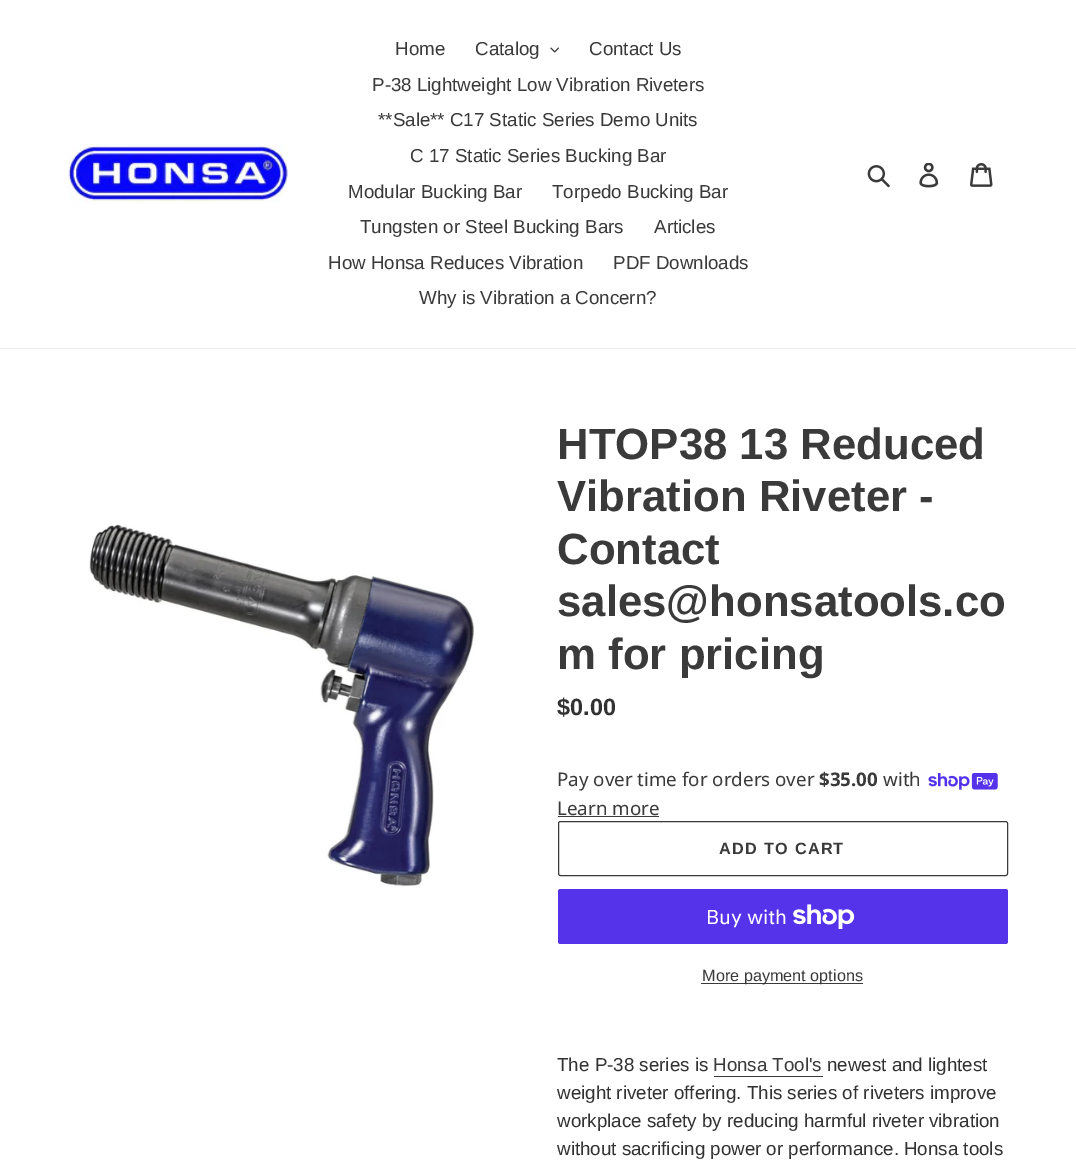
%!PS
<< /PageSize [1076 1170] >> setpagedevice
/rgb { dup -16 bitshift 255 div exch dup -8 bitshift 255 and 255 div exch 255 and 255 div setrgbcolor } def
/font { [ exch dup neg 0 0 3 -1 roll 0 0 ] selectfont } def
/text { moveto show } def
/roundrect { 5 dict begin { /r /h /w /y /x } { exch def } forall
  x r add y moveto x w add y 2 copy h add r arct x w add y h add x 1 index r arct
  x y h add x y r arct x y 2 copy exch w add exch r arct closepath end } def
/picture { 5 dict begin { /h /w /y /x /name } { exch def } forall
  gsave x y translate w h scale
  w h 8 [w 0 0 h 0 0] name (r) file false 3 colorimage grestore end } def
0 1170 translate 1 -1 scale
4 setmiterlimit
/s1 { /LiberationSans-Regular 18.75 font 16#3A3A3A rgb } def
/s2 { /LiberationSans-Bold 43.75 font 16#3A3A3A rgb } def
/s3 { /LiberationSans-Bold 23.5 font 16#333232 rgb } def
/s4 { /NotoSans-Regular 18.75 font 16#3A3A3A rgb } def
/s5 { /NotoSans-Bold 18.75 font 16#3A3A3A rgb } def
/s6 { /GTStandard-Regular 20 font 16#FFFFFF rgb } def
/s7 { /LiberationSans-Regular 16.25 font 16#3A3A3A rgb } def
/s8 { /LiberationSans-Regular 18.75 font 16#333232 rgb } def
16#FFFFFF rgb
0 0 1076 1170 rectfill
16#EBEBEB rgb
0 348 1076 1 rectfill
(pic1.raw) 68 144 220 59 picture
s1
(Home) 395 55 text
(Catalog) 475 55 text
(pic2.raw) 550 47 9 6 picture
(Contact Us) 589 55 text
(P-38 Lightweight Low Vibration Riveters) 372 91 text
(**Sale** C17 Static Series Demo Units) 378 126 text
(C 17 Static Series Bucking Bar) 410 162 text
(Modular Bucking Bar) 348 198 text
(Torpedo Bucking Bar) 552 198 text
(Tungsten or Steel Bucking Bars) 360 233 text
(Articles) 654 233 text
(How Honsa Reduces Vibration) 328 269 text
(PDF Downloads) 613 269 text
(Why is Vibration a Concern?) 419 304 text
(pic3.raw) 867 165 23 23 picture
(pic4.raw) 919 163 20 25 picture
(pic5.raw) 970 163 23 24 picture
(pic6.raw) 89 524 385 364 picture
s2
(HTOP38 13 Reduced) 557 459 text
(Vibration Riveter -) 557 511 text
(Contact) 557 564 text
(sales@honsatools.co) 557 616 text
(m for pricing) 557 669 text
s3
($0.00) 557 715 text
s4
(Pay over time for orders over) 557 786 text
s5
($35.00) 819 786 text
s4
(with) 883 786 text
(pic7.raw) 928 773 70 17 picture
(Learn more) 557 815 text
558 816 101 1 rectfill
558.5 821.5 449 54 2 roundrect stroke
/LiberationSans-Bold 16.25 font
719 854 moveto 1.25 0 (ADD TO CART) ashow
16#5433EB rgb
558 889 450 55 2.5 roundrect fill
s6
(Buy with) 706 924 text
(pic8.raw) 793 904 62 25 picture
16#3A3A3A rgb
701 983 162 1 rectfill
s7
(More payment options) 702 981 text
s8
(The P-38 series is) 557 1071 text
s1
(Honsa Tool's) 713 1071 text
714 1076 109 1 rectfill
s8
(newest and lightest) 827 1071 text
(weight riveter offering. This series of riveters improve) 557 1099 text
(workplace safety by reducing harmful riveter vibration) 557 1127 text
(without sacrificing power or performance. Honsa tools) 557 1155 text
showpage
